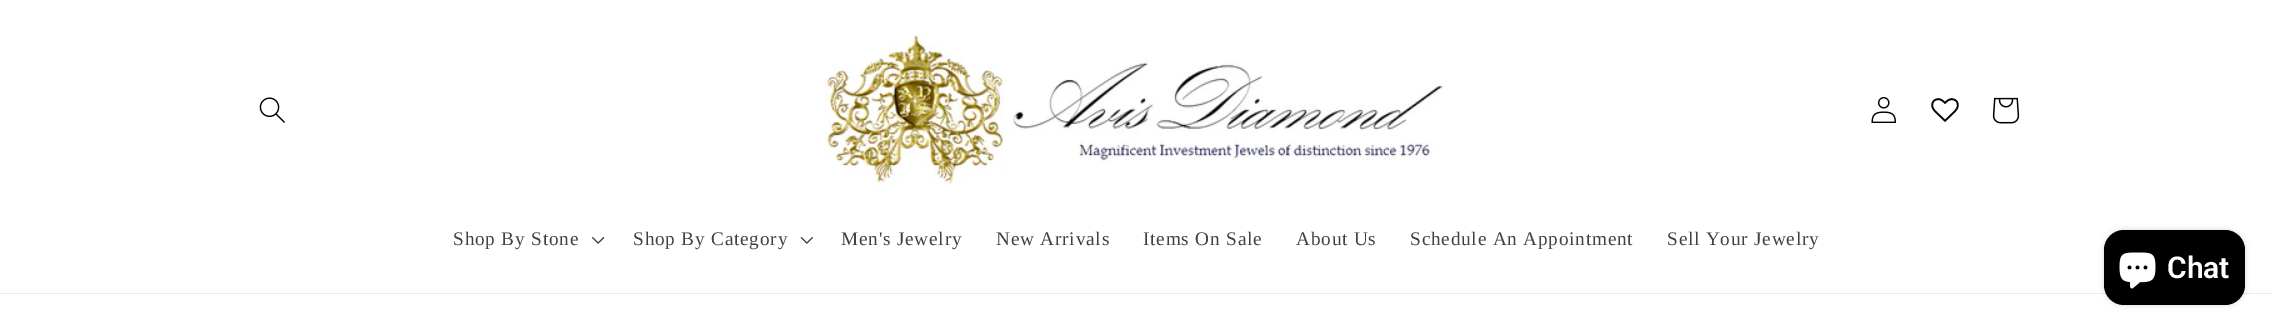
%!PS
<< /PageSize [2272 331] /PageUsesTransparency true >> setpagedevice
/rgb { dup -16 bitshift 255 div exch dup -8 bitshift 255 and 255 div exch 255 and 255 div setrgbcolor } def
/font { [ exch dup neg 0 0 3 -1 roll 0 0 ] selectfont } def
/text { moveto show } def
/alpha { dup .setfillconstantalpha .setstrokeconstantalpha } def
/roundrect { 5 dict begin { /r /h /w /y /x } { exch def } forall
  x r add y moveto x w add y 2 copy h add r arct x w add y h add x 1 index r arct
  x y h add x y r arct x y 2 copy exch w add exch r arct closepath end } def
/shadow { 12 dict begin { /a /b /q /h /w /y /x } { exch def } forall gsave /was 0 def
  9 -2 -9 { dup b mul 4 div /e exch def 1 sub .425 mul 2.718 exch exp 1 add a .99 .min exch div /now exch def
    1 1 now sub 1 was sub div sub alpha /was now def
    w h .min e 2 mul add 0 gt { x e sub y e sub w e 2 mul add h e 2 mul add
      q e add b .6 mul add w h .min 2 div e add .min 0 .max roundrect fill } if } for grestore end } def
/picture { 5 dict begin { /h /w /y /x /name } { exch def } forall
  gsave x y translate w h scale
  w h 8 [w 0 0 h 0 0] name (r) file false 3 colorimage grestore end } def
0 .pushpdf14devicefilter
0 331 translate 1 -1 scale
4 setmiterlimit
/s1 { /Roboto-SemiBold 30 font 16#FFFFFF rgb } def
16#FFFFFF rgb
0 0 2272 331 rectfill
16#EBEBEB rgb
0 293 2272 1 rectfill
(pic1.raw) 259 97 26 26 picture
(pic2.raw) 824 35 619 150 picture
(pic3.raw) 1871 97 26 26 picture
(pic4.raw) 1931 98 28 24 picture
(pic5.raw) 1992 97 28 27 picture
/LiberationSerif-Regular 19.25 font
16#404040 rgb
453 245 moveto 0.8 0 (Shop By Stone) ashow
(pic6.raw) 592 237 13 7 picture
633 245 moveto 0.8 0 (Shop By Category) ashow
(pic7.raw) 800 237 13 7 picture
841 245 moveto 0.8 0 (Men's Jewelry) ashow
996 245 moveto 0.8 0 (New Arrivals) ashow
1143 245 moveto 0.8 0 (Items On Sale) ashow
1296 245 moveto 0.8 0 (About Us) ashow
1410 245 moveto 0.8 0 (Schedule An Appointment) ashow
1667 245 moveto 0.8 0 (Sell Your Jewelry) ashow
16#000000 rgb
2104 230 141 75 20 3 0.15 shadow
2104 230 141 75 20 roundrect fill
(pic8.raw) 2119 252 37 37 picture
s1
(Chat) 2167 278 text
.poppdf14devicefilter showpage
